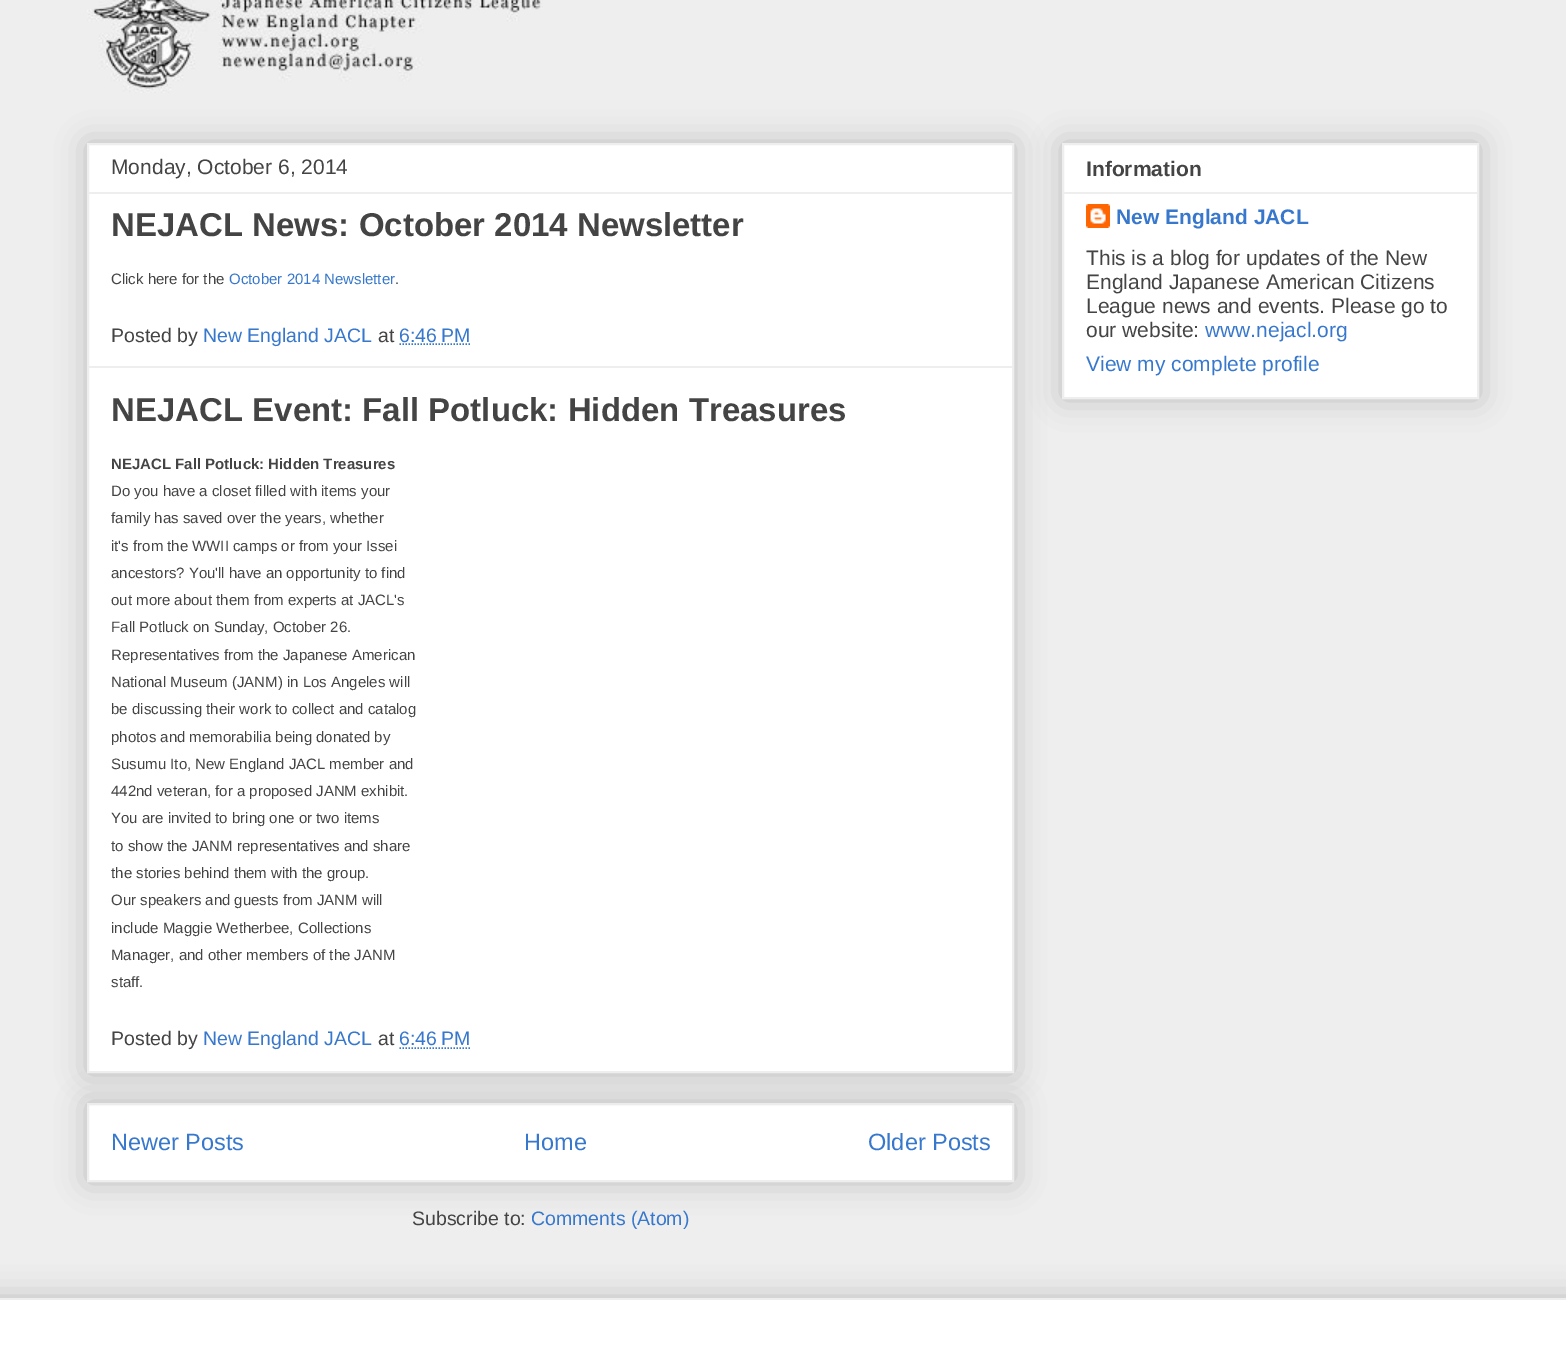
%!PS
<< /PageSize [1566 1351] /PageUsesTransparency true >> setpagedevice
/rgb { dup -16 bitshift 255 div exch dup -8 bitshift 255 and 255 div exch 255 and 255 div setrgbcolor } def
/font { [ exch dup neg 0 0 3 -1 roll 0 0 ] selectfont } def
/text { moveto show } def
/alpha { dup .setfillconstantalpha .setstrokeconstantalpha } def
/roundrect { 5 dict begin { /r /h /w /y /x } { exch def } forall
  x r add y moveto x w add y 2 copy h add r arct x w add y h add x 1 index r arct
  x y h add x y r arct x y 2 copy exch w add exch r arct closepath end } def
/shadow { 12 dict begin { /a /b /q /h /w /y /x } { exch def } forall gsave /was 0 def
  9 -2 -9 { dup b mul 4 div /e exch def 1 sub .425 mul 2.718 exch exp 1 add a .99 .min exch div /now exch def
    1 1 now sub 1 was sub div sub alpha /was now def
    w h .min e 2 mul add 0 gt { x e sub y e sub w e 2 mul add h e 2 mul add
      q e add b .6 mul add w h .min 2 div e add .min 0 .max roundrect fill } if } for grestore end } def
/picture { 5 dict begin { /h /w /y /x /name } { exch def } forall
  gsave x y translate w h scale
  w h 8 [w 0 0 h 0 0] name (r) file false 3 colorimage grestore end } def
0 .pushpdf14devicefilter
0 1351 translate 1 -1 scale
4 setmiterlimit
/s1 { /LiberationSans-Regular 21 font 16#444444 rgb } def
/s2 { /LiberationSans-Bold 33 font 16#444444 rgb } def
/s3 { /LiberationSans-Regular 15 font 16#444444 rgb } def
/s4 { /LiberationSans-Regular 15 font 16#3778CD rgb } def
/s5 { /LiberationSans-Regular 19.5 font 16#444444 rgb } def
/s6 { /LiberationSans-Regular 19.5 font 16#3778CD rgb } def
/s7 { /LiberationSans-Bold 15 font 16#444444 rgb } def
/s8 { /LiberationSans-Regular 23.5 font 16#3778CD rgb } def
/s9 { /LiberationSans-Bold 21 font 16#444444 rgb } def
/s10 { /LiberationSans-Bold 21 font 16#3778CD rgb } def
/s11 { /LiberationSans-Regular 21 font 16#3778CD rgb } def
16#EEEEEE rgb
0 0 1566 1351 rectfill
(pic1.raw) 87 0 456 93 picture
16#000000 rgb
87 1103 927 79 0 15 0.2 shadow
16#FFFFFF rgb
88 1104 moveto 1013 1104 lineto 1013 1181 lineto 88 1181 lineto closepath gsave fill grestore
16#EEEEEE rgb
2 setlinewidth
stroke
16#000000 rgb
87 143 927 930 0 15 0.2 shadow
16#FFFFFF rgb
88 144 moveto 1013 144 lineto 1013 1072 lineto 88 1072 lineto closepath gsave fill grestore
16#EEEEEE rgb
stroke
s1
(Monday, October 6, 2014) 111 174 text
16#EEEEEE rgb
89 192 924 2 rectfill
s2
(NEJACL News: October 2014 Newsletter) 111 236 text
s3
(Click here for the) 111 284 text
s4
(October 2014 Newsletter) 229 284 text
s3
(.) 395 284 text
s5
(Posted by) 111 342 text
s6
(New England JACL) 203 342 text
s5
(at) 378 342 text
s6
(6:46 PM) 399 342 text
1.5 setlinewidth
[1.5 1.5] 0 setdash
399.5 344 moveto 470.5 344 lineto stroke
16#EEEEEE rgb
89 366 924 2 rectfill
s2
(NEJACL Event: Fall Potluck: Hidden Treasures) 111 421 text
s7
(NEJACL Fall Potluck: Hidden Treasures) 111 469 text
s3
(Do you have a closet filled with items your) 111 496 text
(family has saved over the years, whether) 111 523 text
(it's from the WWII camps or from your Issei) 111 551 text
(ancestors? You'll have an opportunity to find) 111 578 text
(out more about them from experts at JACL's) 111 605 text
(Fall Potluck on Sunday, October 26.) 111 632 text
(Representatives from the Japanese American) 111 660 text
(National Museum \(JANM\) in Los Angeles will) 111 687 text
(be discussing their work to collect and catalog) 111 714 text
(photos and memorabilia being donated by) 111 742 text
(Susumu Ito, New England JACL member and) 111 769 text
(442nd veteran, for a proposed JANM exhibit.) 111 796 text
(You are invited to bring one or two items) 111 823 text
(to show the JANM representatives and share) 111 851 text
(the stories behind them with the group.) 111 878 text
(Our speakers and guests from JANM will) 111 905 text
(include Maggie Wetherbee, Collections) 111 933 text
(Manager, and other members of the JANM) 111 960 text
(staff.) 111 987 text
s5
(Posted by) 111 1045 text
s6
(New England JACL) 203 1045 text
s5
(at) 378 1045 text
s6
(6:46 PM) 399 1045 text
399.5 1048 moveto 470.5 1048 lineto stroke
s8
(Newer Posts) 111 1150 text
(Home) 524 1150 text
(Older Posts) 868 1150 text
s5
(Subscribe to:) 412 1225 text
s6
(Comments \(Atom\)) 531 1225 text
16#000000 rgb
1062 143 417 256 0 15 0.2 shadow
16#FFFFFF rgb
1063 144 moveto 1478 144 lineto 1478 398 lineto 1063 398 lineto closepath gsave fill grestore
16#EEEEEE rgb
2 setlinewidth
[] 0 setdash
stroke
s9
(Information) 1086 176 text
16#EEEEEE rgb
1064 192 414 2 rectfill
(pic2.raw) 1086 204 24 24 picture
s10
(New England JACL) 1116 224 text
s1
(This is a blog for updates of the New) 1086 265 text
(England Japanese American Citizens) 1086 289 text
(League news and events. Please go to) 1086 313 text
(our website:) 1086 337 text
s11
(www.nejacl.org) 1205 337 text
(View my complete profile) 1086 371 text
16#000000 rgb
-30 1298 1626 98 0 15 0.2 shadow
16#FFFFFF rgb
0 1300 1566 51 rectfill
16#EEEEEE rgb
0 1298 1566 2 rectfill
.poppdf14devicefilter showpage
